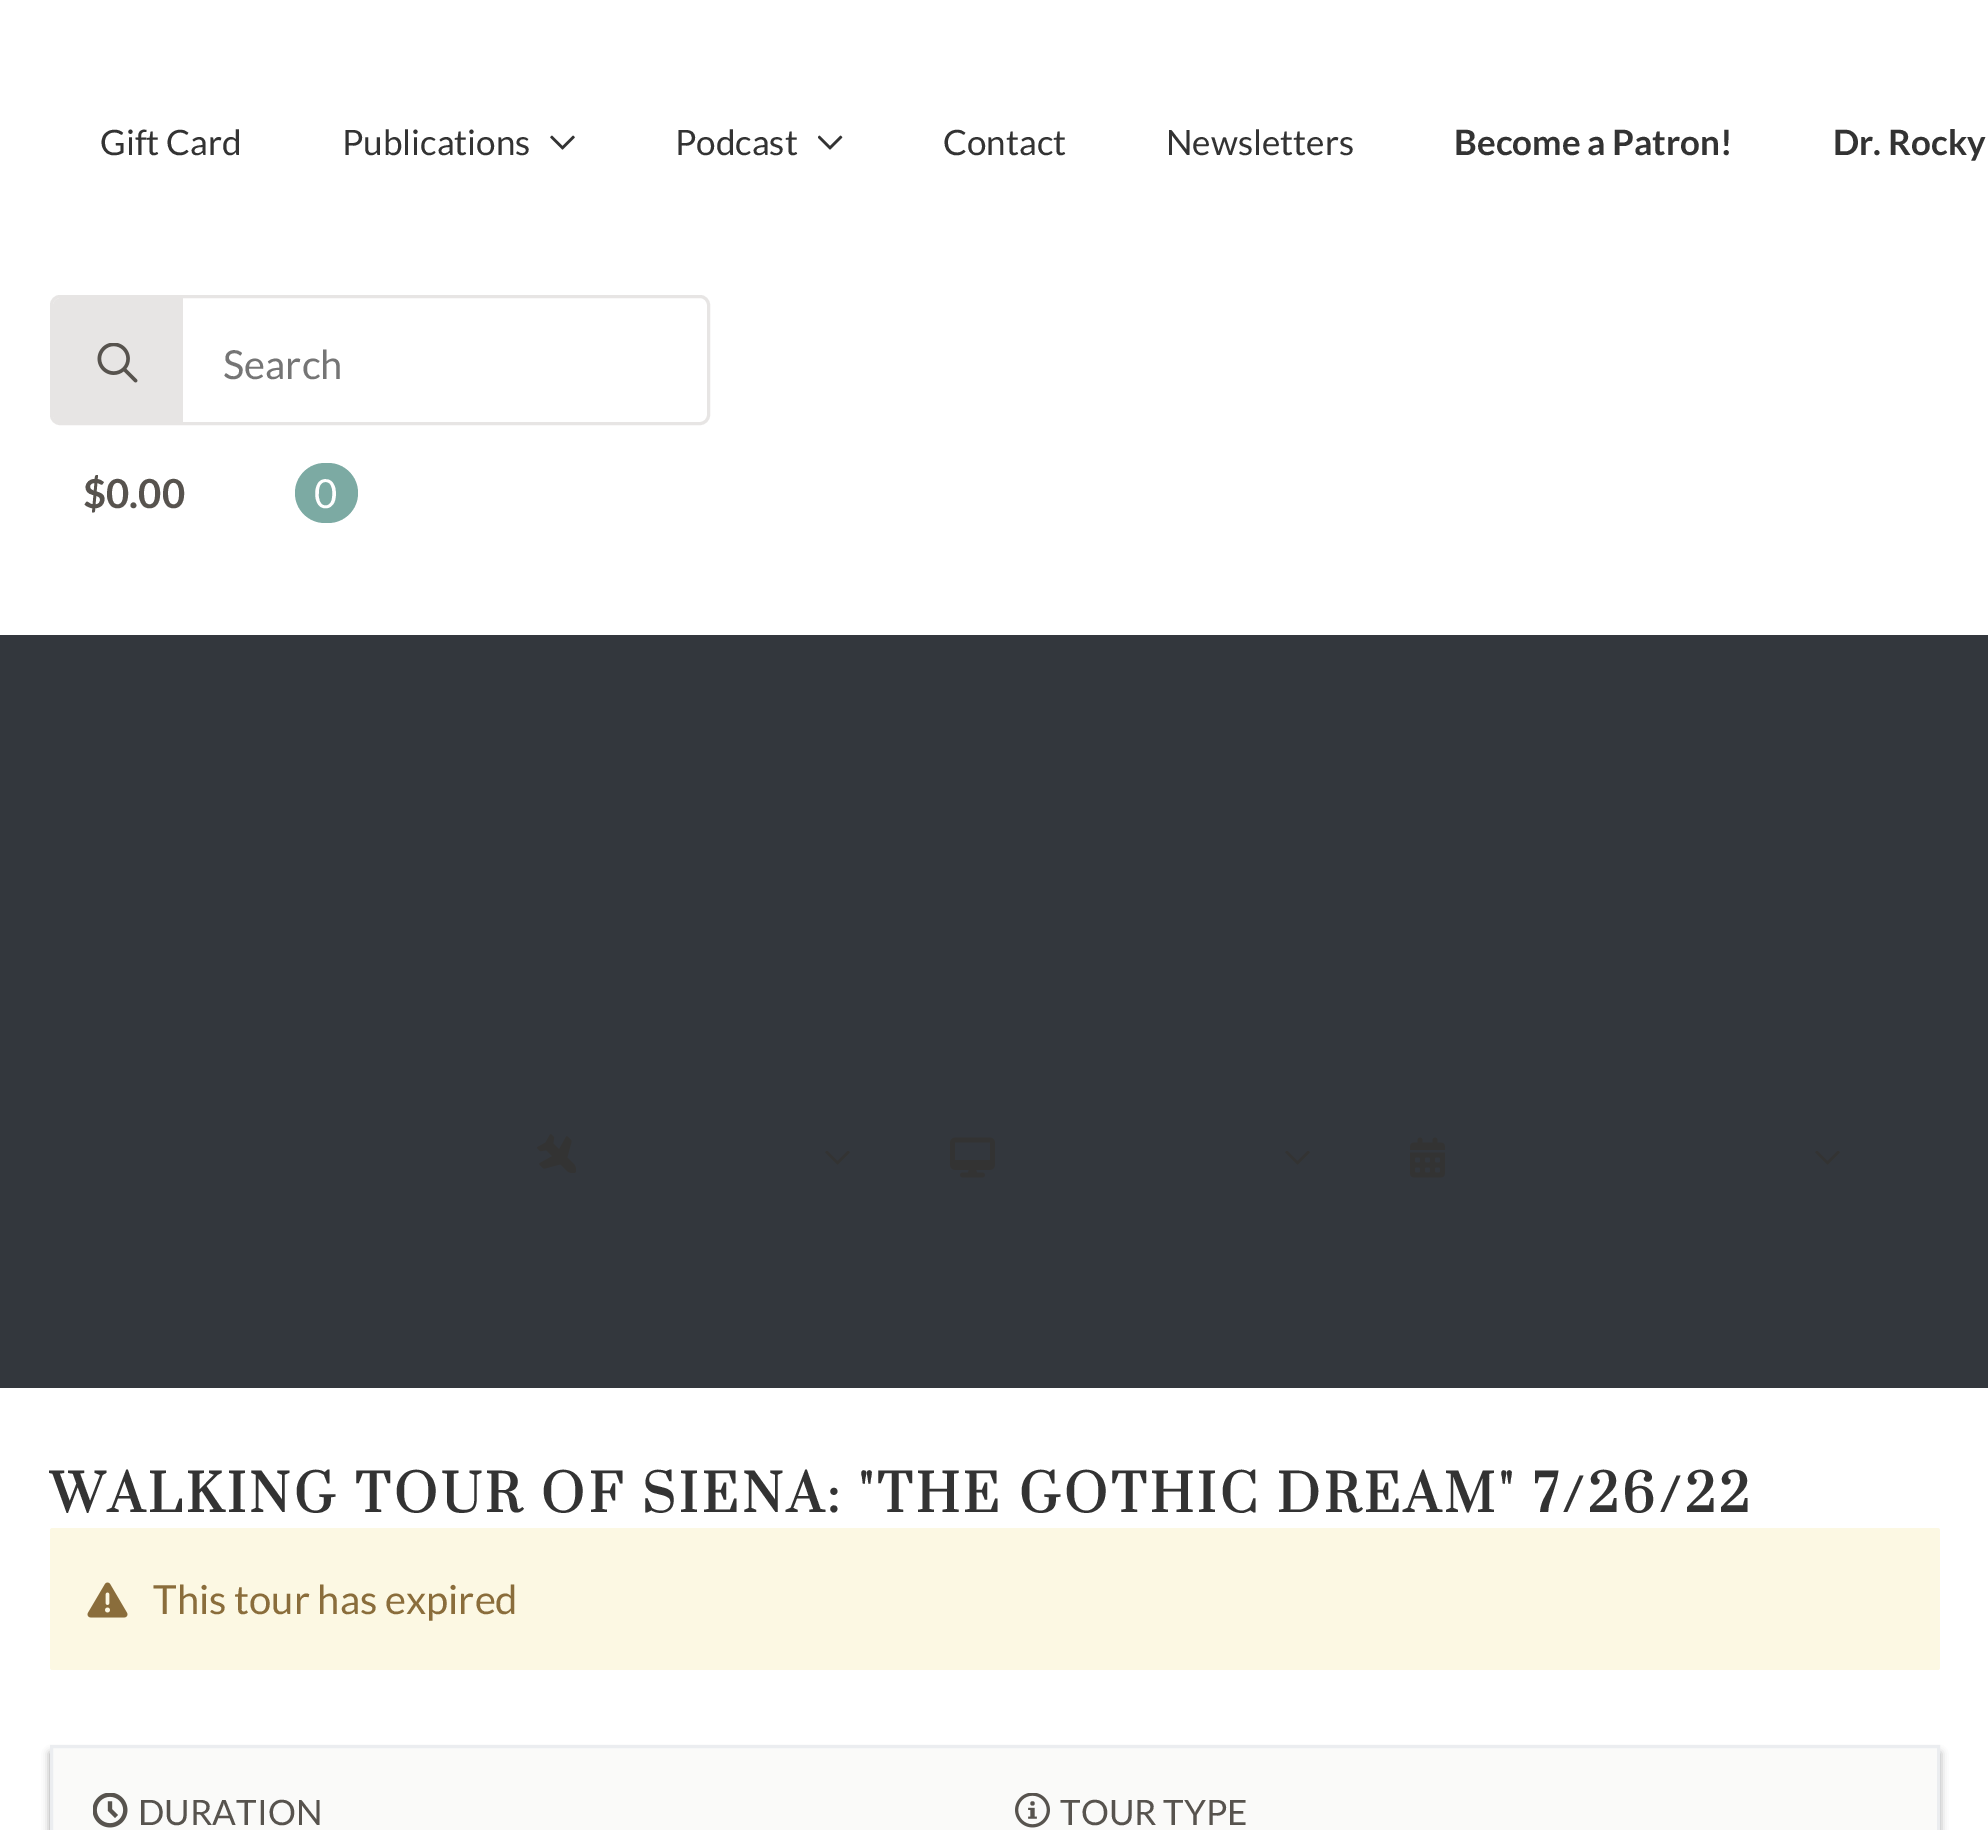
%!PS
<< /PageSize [1988 1830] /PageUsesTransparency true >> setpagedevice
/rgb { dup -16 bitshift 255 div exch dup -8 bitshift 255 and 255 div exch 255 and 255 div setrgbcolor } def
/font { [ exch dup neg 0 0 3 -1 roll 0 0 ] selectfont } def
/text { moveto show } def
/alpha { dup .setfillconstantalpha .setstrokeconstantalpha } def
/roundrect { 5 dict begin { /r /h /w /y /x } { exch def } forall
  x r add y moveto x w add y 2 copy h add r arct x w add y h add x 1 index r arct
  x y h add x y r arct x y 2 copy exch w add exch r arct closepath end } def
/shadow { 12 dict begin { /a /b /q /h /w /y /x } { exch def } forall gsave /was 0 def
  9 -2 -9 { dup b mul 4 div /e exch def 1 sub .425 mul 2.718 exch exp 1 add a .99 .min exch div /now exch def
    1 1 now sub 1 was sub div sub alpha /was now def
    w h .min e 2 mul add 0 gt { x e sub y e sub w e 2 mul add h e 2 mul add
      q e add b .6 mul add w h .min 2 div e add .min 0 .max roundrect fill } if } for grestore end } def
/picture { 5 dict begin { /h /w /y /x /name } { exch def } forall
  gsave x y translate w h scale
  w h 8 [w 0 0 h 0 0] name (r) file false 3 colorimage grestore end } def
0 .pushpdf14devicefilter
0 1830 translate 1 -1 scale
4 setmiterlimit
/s1 { /Lato-Regular 35 font 16#333333 rgb } def
/s2 { /Lato-Bold 35 font 16#333333 rgb } def
/s3 { /Lato-Regular 40 font 16#757575 rgb } def
/s4 { /Lato-Bold 40 font 16#57534E rgb } def
/s5 { /Lato-Regular 40 font 16#FFFFFF rgb } def
/s6 { /Lato-Regular 40 font 16#8A6D3B rgb } def
/s7 { /Lato-Regular 35 font 16#57534E rgb } def
16#FFFFFF rgb
0 0 1988 1830 rectfill
s1
(Gift Card) 100 155 text
(Publications) 342 155 text
(pic1.raw) 550 135 25 15 picture
(Podcast) 675 155 text
(pic2.raw) 818 135 25 15 picture
(Contact) 943 155 text
(Newsletters) 1166 155 text
s2
(Become a Patron!) 1454 155 text
(Dr. Rocky) 1833 155 text
16#E7E5E4 rgb
3 setlinewidth
51.5 296.5 657 127 8.5 roundrect stroke
61 298 moveto 183 298 lineto 183 423 lineto 61 423 lineto 56.5 423 53 419.5 53 415 curveto 53 306 lineto 53 301.5 56.5 298 61 298 curveto closepath fill
(pic3.raw) 97 343 41 40 picture
s3
(Search) 223 379 text
s4
($0.00) 83 508 text
16#7CAAA3 rgb
295 463 63 60 30 roundrect fill
s5
(0) 314 508 text
16#33373D rgb
0 635 1988 753 rectfill
(pic4.raw) 537 1134 39 39 picture
(pic5.raw) 825 1151 25 14 picture
(pic6.raw) 950 1137 45 41 picture
(pic5.raw) 1285 1151 25 14 picture
(pic7.raw) 1410 1137 35 41 picture
(pic5.raw) 1815 1151 25 14 picture
/Prata-Bold 50 font
16#333333 rgb
50 1512 moveto 4 0 (WALKING TOUR OF SIENA: "THE GOTHIC DREAM" 7/26/22) ashow
16#FCF8E3 rgb
50 1528 1890 142 2.5 roundrect fill
(pic8.raw) 87 1582 41 36 picture
s6
(This tour has expired) 153 1614 text
16#000000 rgb
50 1753 1890 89 0 4 0.38 shadow
16#FAFAF9 rgb
51.5 1746.5 moveto 1938.5 1746.5 lineto 1938.5 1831.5 lineto 51.5 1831.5 lineto closepath gsave fill grestore
16#EBEDF0 rgb
stroke
(pic9.raw) 93 1793 35 35 picture
s7
(DURATION) 138 1825 text
(pic10.raw) 1015 1793 35 35 picture
(TOUR TYPE) 1060 1825 text
.poppdf14devicefilter showpage
